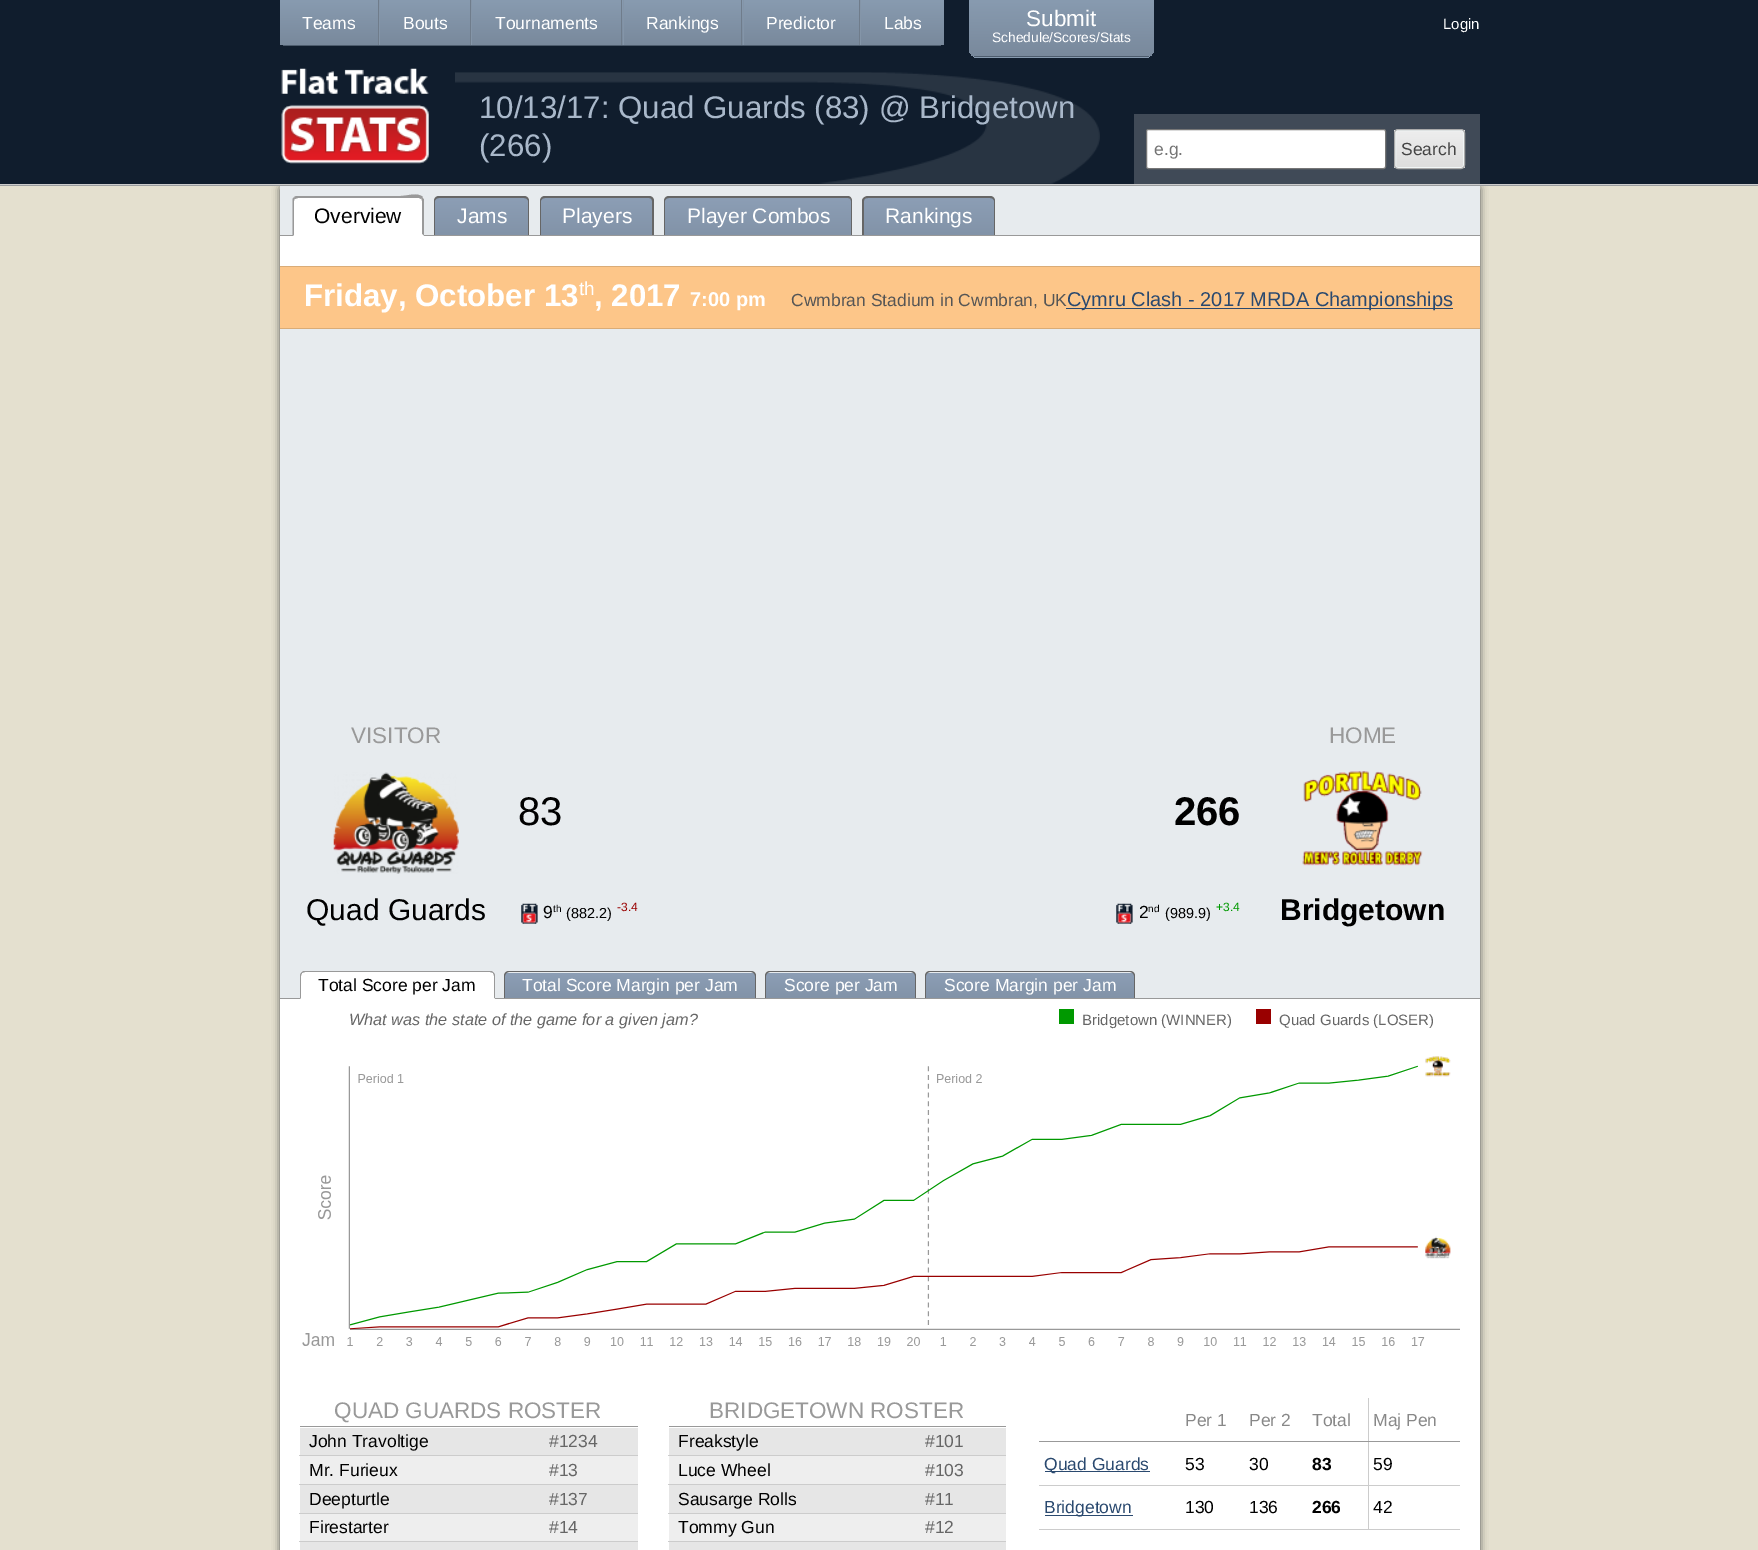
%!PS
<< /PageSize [1758 1550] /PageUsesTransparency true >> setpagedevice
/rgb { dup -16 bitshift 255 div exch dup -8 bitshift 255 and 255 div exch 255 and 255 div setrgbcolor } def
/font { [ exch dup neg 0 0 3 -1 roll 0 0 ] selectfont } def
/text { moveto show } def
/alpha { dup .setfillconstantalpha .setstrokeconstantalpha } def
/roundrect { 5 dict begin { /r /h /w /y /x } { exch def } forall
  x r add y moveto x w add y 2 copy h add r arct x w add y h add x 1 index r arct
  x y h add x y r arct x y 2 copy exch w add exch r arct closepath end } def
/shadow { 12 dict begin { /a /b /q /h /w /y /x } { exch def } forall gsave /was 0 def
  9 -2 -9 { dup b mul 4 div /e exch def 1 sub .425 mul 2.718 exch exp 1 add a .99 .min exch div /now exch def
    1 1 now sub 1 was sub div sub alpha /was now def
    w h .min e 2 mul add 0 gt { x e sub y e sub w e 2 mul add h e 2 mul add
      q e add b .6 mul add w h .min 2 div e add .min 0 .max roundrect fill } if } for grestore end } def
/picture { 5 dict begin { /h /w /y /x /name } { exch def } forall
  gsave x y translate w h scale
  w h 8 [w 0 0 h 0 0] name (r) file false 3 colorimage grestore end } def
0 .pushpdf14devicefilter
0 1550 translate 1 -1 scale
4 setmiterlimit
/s1 { /LiberationSans-Regular 17.5 font 16#FFFFFF rgb } def
/s2 { /LiberationSans-Regular 22.5 font 16#FFFFFF rgb } def
/s3 { /LiberationSans-Regular 13.75 font 16#FFFFFF rgb } def
/s4 { /LiberationSans-Regular 15 font 16#FFFFFF rgb } def
/s5 { /LiberationSans-Regular 31.25 font 16#A9B8CA rgb } def
/s6 { /LiberationSans-Regular 17.5 font 16#757575 rgb } def
/s7 { /LiberationSans-Regular 17.5 font 16#444444 rgb } def
/s8 { /LiberationSans-Regular 21 font 16#000000 rgb } def
/s9 { /LiberationSans-Regular 21 font 16#FFFFFF rgb } def
/s10 { /LiberationSans-Bold 31.25 font 16#FFFFFF rgb } def
/s11 { /LiberationSans-Regular 19 font 16#FFFFFF rgb } def
/s12 { /LiberationSans-Bold 20 font 16#FFFFFF rgb } def
/s13 { /LiberationSans-Regular 17.5 font 16#555555 rgb } def
/s14 { /LiberationSans-Regular 20 font 16#2A496F rgb } def
/s15 { /LiberationSans-Regular 22.5 font 16#999999 rgb } def
/s16 { /LiberationSans-Regular 30 font 16#000000 rgb } def
/s17 { /LiberationSans-Regular 40 font 16#000000 rgb } def
/s18 { /LiberationSans-Bold 40 font 16#000000 rgb } def
/s19 { /LiberationSans-Regular 17.5 font 16#000000 rgb } def
/s20 { /LiberationSans-Regular 10 font 16#000000 rgb } def
/s21 { /LiberationSans-Regular 14.5 font 16#000000 rgb } def
/s22 { /LiberationSans-Regular 12 font 16#990000 rgb } def
/s23 { /LiberationSans-Regular 12 font 16#009900 rgb } def
/s24 { /LiberationSans-Bold 30 font 16#000000 rgb } def
/s25 { /LiberationSans-Italic 16.25 font 16#666666 rgb } def
/s26 { /LiberationSans-Regular 15 font 16#666666 rgb } def
/s27 { /LiberationSans-Regular 17.5 font 16#666666 rgb } def
/s28 { /LiberationSans-Regular 17.5 font 16#888888 rgb } def
/s29 { /LiberationSans-Regular 17.5 font 16#2A496F rgb } def
/s30 { /LiberationSans-Bold 17.5 font 16#000000 rgb } def
16#E4E0CF rgb
0 0 1758 1550 rectfill
16#555555 rgb
280 185 1200 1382 5 4 1 shadow
16#101D2D rgb
0 0 1758 184 rectfill
16#CCCCCC rgb
0 184 1758 1 rectfill
16#9A9D9F rgb
0 185 1758 1 rectfill
(pic1.raw) 455 72 645 112 picture
gsave
280 0 moveto 944 0 lineto 944 41 lineto 944 44 942 46 939 46 curveto 285 46 lineto 282 46 280 44 280 41 curveto closepath clip newpath
gsave 280 0 moveto 944 0 lineto 944 45 lineto 280 45 lineto closepath clip newpath
<< /ShadingType 2 /ColorSpace /DeviceRGB /Coords [612 0 612 45] /Extend [true true] /Function << /FunctionType 2 /Domain [0 1] /C0 [0.533 0.608 0.69] /C1 [0.475 0.537 0.612] /N 1 >> >> shfill grestore
grestore
16#4D5C6D rgb
283 45 658 1 rectfill
16#6F7C8B rgb
378 0 1 45 rectfill
s1
(Teams) 302 29 text
16#6F7C8B rgb
470 0 1 45 rectfill
16#8495A8 rgb
379 0 1 45 rectfill
s1
(Bouts) 403 29 text
16#6F7C8B rgb
621 0 1 45 rectfill
16#8495A8 rgb
471 0 1 45 rectfill
s1
(Tournaments) 495 29 text
16#6F7C8B rgb
741 0 1 45 rectfill
16#8495A8 rgb
623 0 1 45 rectfill
s1
(Rankings) 646 29 text
16#6F7C8B rgb
859 0 1 45 rectfill
16#8495A8 rgb
743 0 1 45 rectfill
s1
(Predictor) 766 29 text
16#8495A8 rgb
860 0 1 45 rectfill
s1
(Labs) 884 29 text
gsave
969 0 moveto 1154 0 lineto 1154 48 lineto 1154 53.5 1149.5 58 1144 58 curveto 979 58 lineto 973.5 58 969 53.5 969 48 curveto closepath clip newpath
gsave 969 0 moveto 1154 0 lineto 1154 56 lineto 969 56 lineto closepath clip newpath
<< /ShadingType 2 /ColorSpace /DeviceRGB /Coords [1061 0 1061 56] /Extend [true true] /Function << /FunctionType 2 /Domain [0 1] /C0 [0.533 0.608 0.69] /C1 [0.475 0.537 0.612] /N 1 >> >> shfill grestore
gsave 969 56 moveto 1154 56 lineto 1154 58 lineto 969 58 lineto closepath clip newpath
<< /ShadingType 2 /ColorSpace /DeviceRGB /Coords [1061 56 1061 113] /Extend [true true] /Function << /FunctionType 2 /Domain [0 1] /C0 [0.533 0.608 0.69] /C1 [0.475 0.537 0.612] /N 1 >> >> shfill grestore
grestore
16#4D5C6D rgb
974 56 175 1 rectfill
s2
(Submit) 1026 26 text
s3
(Schedule/Scores/Stats) 992 42 text
s4
(Login) 1443 29 text
(pic2.raw) 281 68 148 96 picture
s5
(10/13/17: Quad Guards \(83\) @ Bridgetown) 479 118 text
(\(266\)) 479 156 text
16#404A57 rgb
1134 114 346 70 rectfill
16#FFFFFF rgb
1146.5 129.5 239 39 2 roundrect gsave fill grestore
16#767676 rgb
stroke
s6
(e.g.) 1154 155 text
gsave
1394 129 71 40 4 roundrect clip newpath
gsave 1394 130 moveto 1465 130 lineto 1465 168 lineto 1394 168 lineto closepath clip newpath
<< /ShadingType 2 /ColorSpace /DeviceRGB /Coords [1429 130 1429 168] /Extend [true true] /Function << /FunctionType 2 /Domain [0 1] /C0 [0.933 0.933 0.933] /C1 [0.867 0.867 0.867] /N 1 >> >> shfill grestore
grestore
16#F1F6F6 rgb
1395.5 130.5 68 37 2 roundrect stroke
16#AAAAAA rgb
1394.5 129.5 70 39 3.5 roundrect stroke
s7
(Search) 1401 155 text
16#FFFFFF rgb
280 236 1200 1314 rectfill
16#E7EBEE rgb
280 186 1200 49 rectfill
16#999999 rgb
280 235 1200 1 rectfill
16#FFFFFF rgb
298 196 moveto 419 196 lineto 422 196 424 198 424 201 curveto 424 236 lineto 293 236 lineto 293 201 lineto 293 198 295 196 298 196 curveto closepath fill
16#999999 rgb
298 198 moveto 295 199 lineto 294 197 lineto 296 196 lineto 400 196 lineto 408 196 417 192 423 197 curveto 421 199 lineto 419 198 lineto closepath fill
424 236 moveto 422 234.5 lineto 422 201 lineto 422 200 422 199 421 199 curveto 422.5 197.5 lineto 424 199.5 lineto closepath fill
16#FFFFFF rgb
424 236 moveto 293 236 lineto 294 235 lineto 422 235 lineto 422 234 lineto closepath fill
16#999999 rgb
292.5 199 moveto 293.5 197.5 lineto 295 198.5 lineto 294.5 199 294 200 294 201 curveto 294 235 lineto 292.5 236 lineto closepath fill
s8
(Overview) 314 223 text
gsave 439 198 moveto 524 198 lineto 526 198 528 200 528 202 curveto 528 235 lineto 435 235 lineto 435 202 lineto 435 200 437 198 439 198 curveto closepath clip newpath
<< /ShadingType 2 /ColorSpace /DeviceRGB /Coords [481 198 481 235] /Extend [true true] /Function << /FunctionType 2 /Domain [0 1] /C0 [0.549 0.62 0.71] /C1 [0.51 0.576 0.659] /N 1 >> >> shfill grestore
16#666666 rgb
439 196 moveto 524 196 lineto 527 196 529 198 529 201 curveto 529 235 lineto 434 235 lineto 434 201 lineto 434 198 436 196 439 196 curveto closepath 439 198 moveto 524 198 lineto 526 198 528 199 528 201 curveto 528 235 lineto 435 235 lineto 435 201 lineto 435 199 437 198 439 198 curveto closepath eofill
s9
(Jams) 457 223 text
gsave 545 198 moveto 649 198 lineto 651 198 653 200 653 202 curveto 653 235 lineto 541 235 lineto 541 202 lineto 541 200 543 198 545 198 curveto closepath clip newpath
<< /ShadingType 2 /ColorSpace /DeviceRGB /Coords [597 198 597 235] /Extend [true true] /Function << /FunctionType 2 /Domain [0 1] /C0 [0.549 0.62 0.71] /C1 [0.51 0.576 0.659] /N 1 >> >> shfill grestore
16#666666 rgb
545 196 moveto 649 196 lineto 652 196 654 198 654 201 curveto 654 235 lineto 540 235 lineto 540 201 lineto 540 198 542 196 545 196 curveto closepath 545 198 moveto 649 198 lineto 651 198 652 199 652 201 curveto 652 235 lineto 541 235 lineto 541 201 lineto 541 199 543 198 545 198 curveto closepath eofill
s9
(Players) 562 223 text
gsave 669 198 moveto 847 198 lineto 849 198 851 200 851 202 curveto 851 235 lineto 665 235 lineto 665 202 lineto 665 200 667 198 669 198 curveto closepath clip newpath
<< /ShadingType 2 /ColorSpace /DeviceRGB /Coords [758 198 758 235] /Extend [true true] /Function << /FunctionType 2 /Domain [0 1] /C0 [0.549 0.62 0.71] /C1 [0.51 0.576 0.659] /N 1 >> >> shfill grestore
16#666666 rgb
669 196 moveto 848 196 lineto 850 196 852 198 852 201 curveto 852 235 lineto 664 235 lineto 664 201 lineto 664 198 666 196 669 196 curveto closepath 669 198 moveto 848 198 lineto 850 198 851 199 851 201 curveto 851 235 lineto 665 235 lineto 665 201 lineto 665 199 667 198 669 198 curveto closepath eofill
s9
(Player Combos) 687 223 text
gsave 868 198 moveto 990 198 lineto 992 198 994 200 994 202 curveto 994 235 lineto 864 235 lineto 864 202 lineto 864 200 866 198 868 198 curveto closepath clip newpath
<< /ShadingType 2 /ColorSpace /DeviceRGB /Coords [929 198 929 235] /Extend [true true] /Function << /FunctionType 2 /Domain [0 1] /C0 [0.549 0.62 0.71] /C1 [0.51 0.576 0.659] /N 1 >> >> shfill grestore
16#666666 rgb
868 196 moveto 990 196 lineto 993 196 995 198 995 201 curveto 995 235 lineto 862 235 lineto 862 201 lineto 862 198 865 196 868 196 curveto closepath 868 198 moveto 990 198 lineto 992 198 994 199 994 201 curveto 994 235 lineto 864 235 lineto 864 201 lineto 864 199 865 198 868 198 curveto closepath eofill
s9
(Rankings) 885 223 text
16#E7EBEE rgb
280 329 1200 669 rectfill
16#FDC689 rgb
280 267 1200 61 rectfill
16#DAAC77 rgb
280 266 1200 1 rectfill
280 328 1200 1 rectfill
s10
(Friday, October 13) 304 306 text
s11
(th) 579 295 text
s10
(, 2017) 594 306 text
s12
(7:00 pm) 690 306 text
s13
(Cwmbran Stadium in Cwmbran, UK) 791 306 text
16#2A496F rgb
1066 308 387 1 rectfill
s14
(Cymru Clash - 2017 MRDA Championships) 1067 306 text
s15
(VISITOR) 351 743 text
(pic3.raw) 333 772 126 102 picture
s16
(Quad Guards) 306 920 text
s17
(83) 518 825 text
s18
(266) 1174 825 text
(pic4.raw) 521 903 17 21 picture
s19
(9) 543 918 text
s20
(th) 553 912 text
s21
(\(882.2\)) 566 918 text
s22
(-3.4) 617 911 text
(pic4.raw) 1116 903 17 21 picture
s19
(2) 1139 918 text
s20
(nd) 1148 912 text
s21
(\(989.9\)) 1165 918 text
s23
(+3.4) 1216 911 text
s15
(HOME) 1329 743 text
(pic5.raw) 1302 771 121 95 picture
s24
(Bridgetown) 1280 920 text
16#999999 rgb
280 998 1200 1 rectfill
16#FFFFFF rgb
305 971 moveto 490 971 lineto 493 971 495 973 495 976 curveto 495 999 lineto 300 999 lineto 300 976 lineto 300 973 302 971 305 971 curveto closepath fill
16#999999 rgb
305 972 moveto 302 973 lineto 301 973 lineto 303 971 lineto 492 971 lineto 494 973 lineto 493 973 lineto 490 972 lineto closepath fill
495 999 moveto 495 976 lineto 495 974.5 494.5 973.5 493.5 972.5 curveto 493 973.5 lineto 493.5 974 494 975 494 976 curveto 494 998 lineto closepath fill
16#FFFFFF rgb
495 999 moveto 300 999 lineto 301 998 lineto 494 998 lineto closepath fill
16#999999 rgb
300 999 moveto 301 998 lineto 301 976 lineto 301 975 301.5 974 302 973.5 curveto 301.5 972.5 lineto 300.5 973.5 300 974.5 300 976 curveto closepath fill
s19
(Total Score per Jam) 318 991 text
gsave 509 973 moveto 751 973 lineto 753 973 755 975 755 977 curveto 755 998 lineto 505 998 lineto 505 977 lineto 505 975 507 973 509 973 curveto closepath clip newpath
<< /ShadingType 2 /ColorSpace /DeviceRGB /Coords [630 973 630 998] /Extend [true true] /Function << /FunctionType 2 /Domain [0 1] /C0 [0.549 0.62 0.71] /C1 [0.51 0.576 0.659] /N 1 >> >> shfill grestore
16#666666 rgb
509 971 moveto 751 971 lineto 754 971 756 973 756 976 curveto 756 998 lineto 504 998 lineto 504 976 lineto 504 973 506 971 509 971 curveto closepath 509 972 moveto 751 972 lineto 753 972 755 974 755 976 curveto 755 998 lineto 505 998 lineto 505 976 lineto 505 974 507 972 509 972 curveto closepath eofill
s1
(Total Score Margin per Jam) 522 991 text
gsave 770 973 moveto 911 973 lineto 913 973 915 975 915 977 curveto 915 998 lineto 766 998 lineto 766 977 lineto 766 975 768 973 770 973 curveto closepath clip newpath
<< /ShadingType 2 /ColorSpace /DeviceRGB /Coords [841 973 841 998] /Extend [true true] /Function << /FunctionType 2 /Domain [0 1] /C0 [0.549 0.62 0.71] /C1 [0.51 0.576 0.659] /N 1 >> >> shfill grestore
16#666666 rgb
770 971 moveto 911 971 lineto 914 971 916 973 916 976 curveto 916 998 lineto 765 998 lineto 765 976 lineto 765 973 767 971 770 971 curveto closepath 770 972 moveto 911 972 lineto 913 972 915 974 915 976 curveto 915 998 lineto 766 998 lineto 766 976 lineto 766 974 768 972 770 972 curveto closepath eofill
s1
(Score per Jam) 784 991 text
gsave 930 973 moveto 1130 973 lineto 1132 973 1134 975 1134 977 curveto 1134 998 lineto 926 998 lineto 926 977 lineto 926 975 928 973 930 973 curveto closepath clip newpath
<< /ShadingType 2 /ColorSpace /DeviceRGB /Coords [1030 973 1030 998] /Extend [true true] /Function << /FunctionType 2 /Domain [0 1] /C0 [0.549 0.62 0.71] /C1 [0.51 0.576 0.659] /N 1 >> >> shfill grestore
16#666666 rgb
930 971 moveto 1130 971 lineto 1133 971 1135 973 1135 976 curveto 1135 998 lineto 925 998 lineto 925 976 lineto 925 973 927 971 930 971 curveto closepath 930 972 moveto 1130 972 lineto 1132 972 1134 974 1134 976 curveto 1134 998 lineto 926 998 lineto 926 976 lineto 926 974 928 972 930 972 curveto closepath eofill
s1
(Score Margin per Jam) 944 991 text
s25
(What was the state of the game for a given jam?) 349 1025 text
16#009900 rgb
1059 1009 15 15 rectfill
s26
(Bridgetown \(WINNER\)) 1082 1025 text
16#990000 rgb
1256 1009 15 15 rectfill
s26
(Quad Guards \(LOSER\)) 1279 1025 text
(pic6.raw) 302 1056 1158 290 picture
16#999999 rgb
300 1426 338 1 rectfill
s15
(QUAD GUARDS ROSTER) 334 1418 text
16#E6E6E6 rgb
300 1428 338 27 rectfill
16#CCCCCC rgb
299 1455 339 1 rectfill
s19
(John Travoltige) 309 1447 text
s27
(#1234) 549 1447 text
16#EEEEEE rgb
300 1456 338 28 rectfill
16#CCCCCC rgb
299 1484 339 1 rectfill
s19
(Mr. Furieux) 309 1476 text
s27
(#13) 549 1476 text
16#E6E6E6 rgb
300 1485 338 28 rectfill
16#CCCCCC rgb
299 1513 339 1 rectfill
s19
(Deepturtle) 309 1505 text
s27
(#137) 549 1505 text
16#EEEEEE rgb
300 1514 338 27 rectfill
16#CCCCCC rgb
299 1541 339 1 rectfill
s19
(Firestarter) 309 1533 text
s27
(#14) 549 1533 text
16#E6E6E6 rgb
300 1542 338 8 rectfill
16#999999 rgb
669 1426 337 1 rectfill
s15
(BRIDGETOWN ROSTER) 709 1418 text
16#E6E6E6 rgb
669 1428 337 27 rectfill
16#CCCCCC rgb
668 1455 338 1 rectfill
s19
(Freakstyle) 678 1447 text
s27
(#101) 925 1447 text
16#EEEEEE rgb
669 1456 337 28 rectfill
16#CCCCCC rgb
668 1484 338 1 rectfill
s19
(Luce Wheel) 678 1476 text
s27
(#103) 925 1476 text
16#E6E6E6 rgb
669 1485 337 28 rectfill
16#CCCCCC rgb
668 1513 338 1 rectfill
s19
(Sausarge Rolls) 678 1505 text
s27
(#11) 925 1505 text
16#EEEEEE rgb
669 1514 337 27 rectfill
16#CCCCCC rgb
668 1541 338 1 rectfill
s19
(Tommy Gun) 678 1533 text
s27
(#12) 925 1533 text
16#E6E6E6 rgb
669 1542 337 8 rectfill
s28
(Per 1) 1185 1426 text
(Per 2) 1249 1426 text
16#CCCCCC rgb
1039 1485 421 1 rectfill
1039 1529 421 1 rectfill
1368 1441 1 89 rectfill
16#999999 rgb
1368 1441 92 1 rectfill
16#CCCCCC rgb
1368 1398 1 45 rectfill
16#999999 rgb
1039 1441 330 1 rectfill
s28
(Total) 1312 1426 text
(Maj Pen) 1373 1426 text
16#2A496F rgb
1045 1471 105 1 rectfill
(Quad Guards) 1044 1470 text
s19
(53) 1185 1470 text
(30) 1249 1470 text
s30
(83) 1312 1470 text
s19
(59) 1373 1470 text
16#2A496F rgb
1045 1515 88 1 rectfill
(Bridgetown) 1044 1513 text
s19
(130) 1185 1513 text
(136) 1249 1513 text
s30
(266) 1312 1513 text
s19
(42) 1373 1513 text
.poppdf14devicefilter showpage
